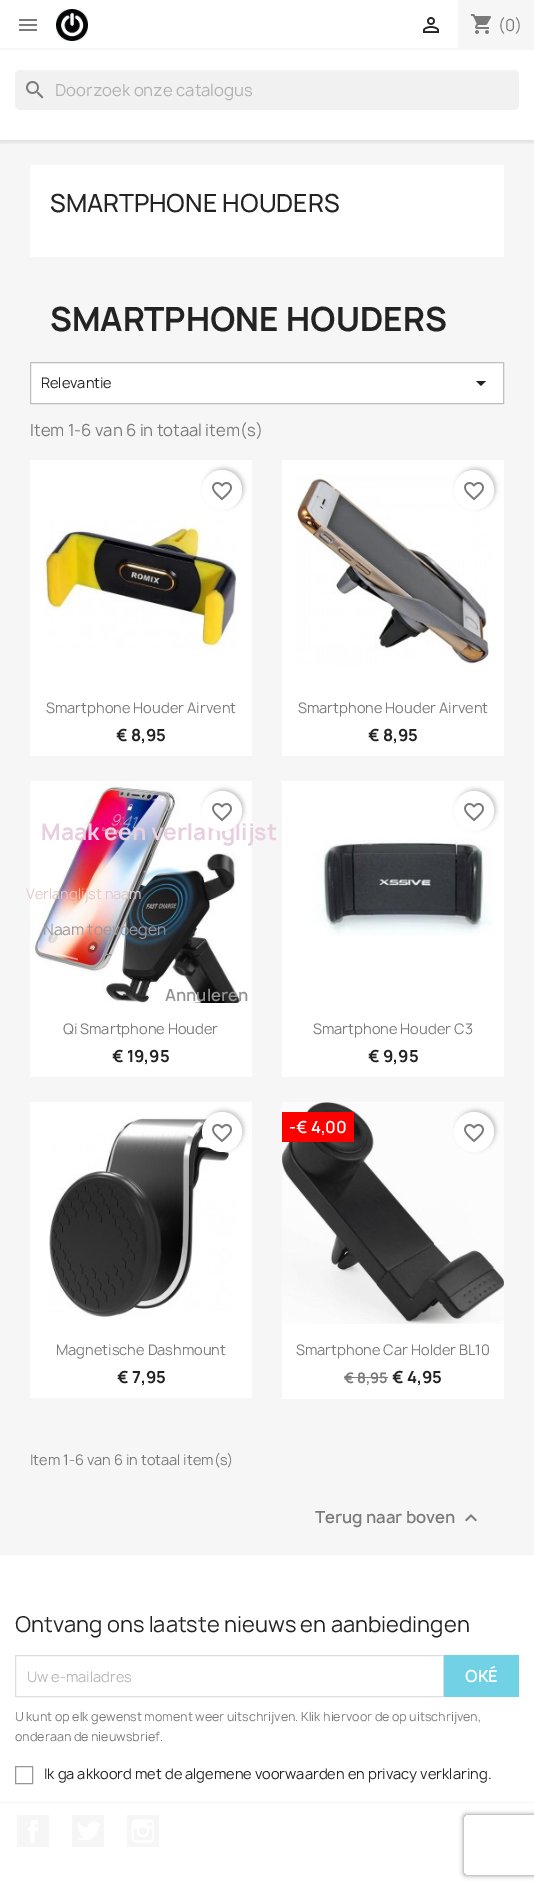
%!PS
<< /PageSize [534 1889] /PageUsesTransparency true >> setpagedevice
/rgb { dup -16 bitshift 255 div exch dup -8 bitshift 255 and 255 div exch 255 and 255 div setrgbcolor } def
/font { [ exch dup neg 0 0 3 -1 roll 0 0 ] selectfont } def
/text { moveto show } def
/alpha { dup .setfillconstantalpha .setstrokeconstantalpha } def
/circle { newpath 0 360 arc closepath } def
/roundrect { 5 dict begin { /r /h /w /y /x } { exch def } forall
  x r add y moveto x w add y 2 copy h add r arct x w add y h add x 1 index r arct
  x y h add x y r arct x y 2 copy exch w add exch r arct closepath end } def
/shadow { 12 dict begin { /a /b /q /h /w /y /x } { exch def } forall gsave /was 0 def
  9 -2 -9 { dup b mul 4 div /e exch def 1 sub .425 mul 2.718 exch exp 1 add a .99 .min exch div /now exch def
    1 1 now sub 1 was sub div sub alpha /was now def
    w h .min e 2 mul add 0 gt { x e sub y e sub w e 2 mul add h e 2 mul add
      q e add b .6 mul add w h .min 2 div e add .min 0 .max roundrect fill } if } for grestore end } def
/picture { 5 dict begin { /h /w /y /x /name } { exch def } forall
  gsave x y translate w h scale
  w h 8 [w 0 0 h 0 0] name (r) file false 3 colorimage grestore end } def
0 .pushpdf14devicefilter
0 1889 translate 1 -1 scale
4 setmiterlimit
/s1 { /Manrope-Regular 16 font 16#7A7A7A rgb } def
/s2 { /Manrope-Regular 16 font 16#B1B1B1 rgb } def
/s3 { /Manrope-Medium 24 font 16#232323 rgb } def
/s4 { /Manrope-Bold 32 font 16#232323 rgb } def
/s5 { /Manrope-Regular 14 font 16#232323 rgb } def
/s6 { /Manrope-Regular 14 font 16#7A7A7A rgb } def
/s7 { /Manrope-Bold 16 font 16#232323 rgb } def
/s8 { /Manrope-Bold 22 font 16#E8CFE0 rgb } def
/s9 { /Manrope-SemiBold 16 font 16#FFFFFF rgb } def
/s10 { /Manrope-Bold 14 font 16#7A7A7A rgb } def
/s11 { /Manrope-SemiBold 16 font 16#7A7A7A rgb } def
/s12 { /Manrope-Regular 14 font 16#E1C9C6 rgb } def
/s13 { /Manrope-Regular 15 font 16#9E969A rgb } def
/s14 { /Manrope-SemiBold 16 font 16#919191 rgb } def
/s15 { /Manrope-Regular 21 font 16#232323 rgb } def
/s16 { /Manrope-Regular 14 font 16#B7B7B7 rgb } def
/s17 { /Manrope-Regular 12 font 16#7A7A7A rgb } def
16#FFFFFF rgb
0 0 534 1889 rectfill
16#F6F6F6 rgb
0 140 534 1415 rectfill
gsave
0 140 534 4 rectclip
16#000000 rgb
0 2 534 140 0 2.5 0.11 shadow
grestore
0 48 534 2 rectfill
(pic1.raw) 19 19 18 12 picture
(pic2.raw) 56 9 32 32 picture
(pic3.raw) 423 17 16 16 picture
458 0 76 48 rectfill
(pic4.raw) 471 14 20 20 picture
s1
(\(0\)) 498 31 text
16#F1F1F1 rgb
15 70 504 40 5 roundrect fill
(pic5.raw) 26 81 18 18 picture
s2
(Doorzoek onze catalogus) 55 96 text
16#FFFFFF rgb
30 165 474 92 rectfill
s3
(SMARTPHONE HOUDERS) 50 212 text
s4
(SMARTPHONE HOUDERS) 50 331 text
16#FFFFFF rgb
30.5 362.5 moveto 503.5 362.5 lineto 503.5 403.5 lineto 30.5 403.5 lineto closepath gsave fill grestore
16#BFBFBF rgb
stroke
s5
(Relevantie) 41 388 text
476 381 moveto 486 381 lineto 481 386 lineto closepath fill
s1
(Item 1-6 van 6 in totaal item\(s\)) 30 436 text
16#FFFFFF rgb
30 460 222 296 rectfill
16#000000 rgb
204 468 40 40 20 2 0.2 shadow
16#FFFFFF rgb
222 490 20 circle fill
(pic6.raw) 212 482 20 19 picture
(pic7.raw) 44 519 192 131 picture
s6
(Smartphone Houder Airvent) 46 713 text
s7
(€ 8,95) 116 741 text
16#FFFFFF rgb
282 460 222 296 rectfill
(pic8.raw) 296 474 196 192 picture
16#000000 rgb
456 468 40 40 20 2 0.2 shadow
16#FFFFFF rgb
474 490 20 circle fill
(pic6.raw) 464 482 20 19 picture
s6
(Smartphone Houder Airvent) 298 713 text
s7
(€ 8,95) 368 741 text
16#FFFFFF rgb
30 781 222 296 rectfill
(pic9.raw) 30 781 210 222 picture
16#000000 rgb
204 789 40 40 20 2 0.2 shadow
s8
(Maak een verlanglijst) 41 840 text
16#FFFFFF rgb
222 811 20 circle fill
(pic6.raw) 212 803 20 19 picture
s6
(Qi Smartphone Houder) 63 1034 text
s7
(€ 19,95) 112 1062 text
16#FFFFFF rgb
282 781 222 296 rectfill
16#000000 rgb
456 789 40 40 20 2 0.2 shadow
16#FFFFFF rgb
474 811 20 circle fill
(pic6.raw) 464 803 20 19 picture
(pic10.raw) 311 838 182 98 picture
s6
(Smartphone Houder C3) 313 1034 text
s7
(€ 9,95) 368 1062 text
16#FFFFFF rgb
30 1102 222 296 rectfill
(pic11.raw) 49 1117 187 200 picture
16#000000 rgb
204 1110 40 40 20 2 0.2 shadow
16#FFFFFF rgb
222 1132 20 circle fill
(pic6.raw) 212 1124 20 19 picture
s6
(Magnetische Dashmount) 56 1355 text
s7
(€ 7,95) 117 1383 text
16#FFFFFF rgb
282 1324 222 75 rectfill
(pic12.raw) 282 1102 222 222 picture
16#FF0000 rgb
282 1112 72 30 rectfill
s9
(-€ 4,00) 289 1133 text
16#000000 rgb
456 1110 40 40 20 2 0.2 shadow
16#FFFFFF rgb
474 1132 20 circle fill
(pic6.raw) 464 1124 20 19 picture
s6
(Smartphone Car Holder BL10) 296 1355 text
s10
(€ 8,95) 344 1383 text
344 1377 44 1 rectfill
s7
(€ 4,95) 392 1383 text
s6
(Item 1-6 van 6 in totaal item\(s\)) 30 1465 text
s11
(Terug naar boven) 315 1523 text
(pic13.raw) 465 1514 12 8 picture
s12
(Verlanglijst naam) 26 899 text
s13
(Naam toevoegen) 43 935 text
s14
(Annuleren) 165 1001 text
16#F6F6F6 rgb
0 1802 534 1 rectfill
s15
(Ontvang ons laatste nieuws en aanbiedingen) 15 1632 text
16#DDDDDD rgb
15.5 1655.5 428 41 rectstroke
s16
(Uw e-mailadres) 27 1682 text
16#71D2E5 rgb
444 1655 75 42 rectfill
s9
(OKÉ) 465 1682 text
s17
(U kunt op elk gewenst moment weer uitschrijven. Klik hiervoor de op uitschrijven,) 15 1721 text
(onderaan de nieuwsbrief.) 15 1741 text
16#979797 rgb
15.5 1766.5 17 17 rectstroke
s5
(Ik ga akkoord met de algemene voorwaarden en privacy verklaring.) 44 1779 text
16#F6F6F6 rgb
17 1815 32 32 rectfill
(pic14.raw) 28 1820 10 23 picture
72 1815 32 32 rectfill
(pic15.raw) 78 1821 22 19 picture
127 1815 32 32 rectfill
(pic16.raw) 131 1819 23 24 picture
gsave
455 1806 moveto 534 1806 lineto 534 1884 lineto 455 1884 lineto closepath 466 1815 moveto 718 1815 lineto 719 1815 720 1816 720 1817 curveto 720 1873 lineto 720 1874 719 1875 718 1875 curveto 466 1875 lineto 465 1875 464 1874 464 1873 curveto 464 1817 lineto 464 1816 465 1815 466 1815 curveto closepath eoclip newpath
16#808080 rgb
464 1815 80 60 2 2.5 1 shadow
grestore
.poppdf14devicefilter showpage
